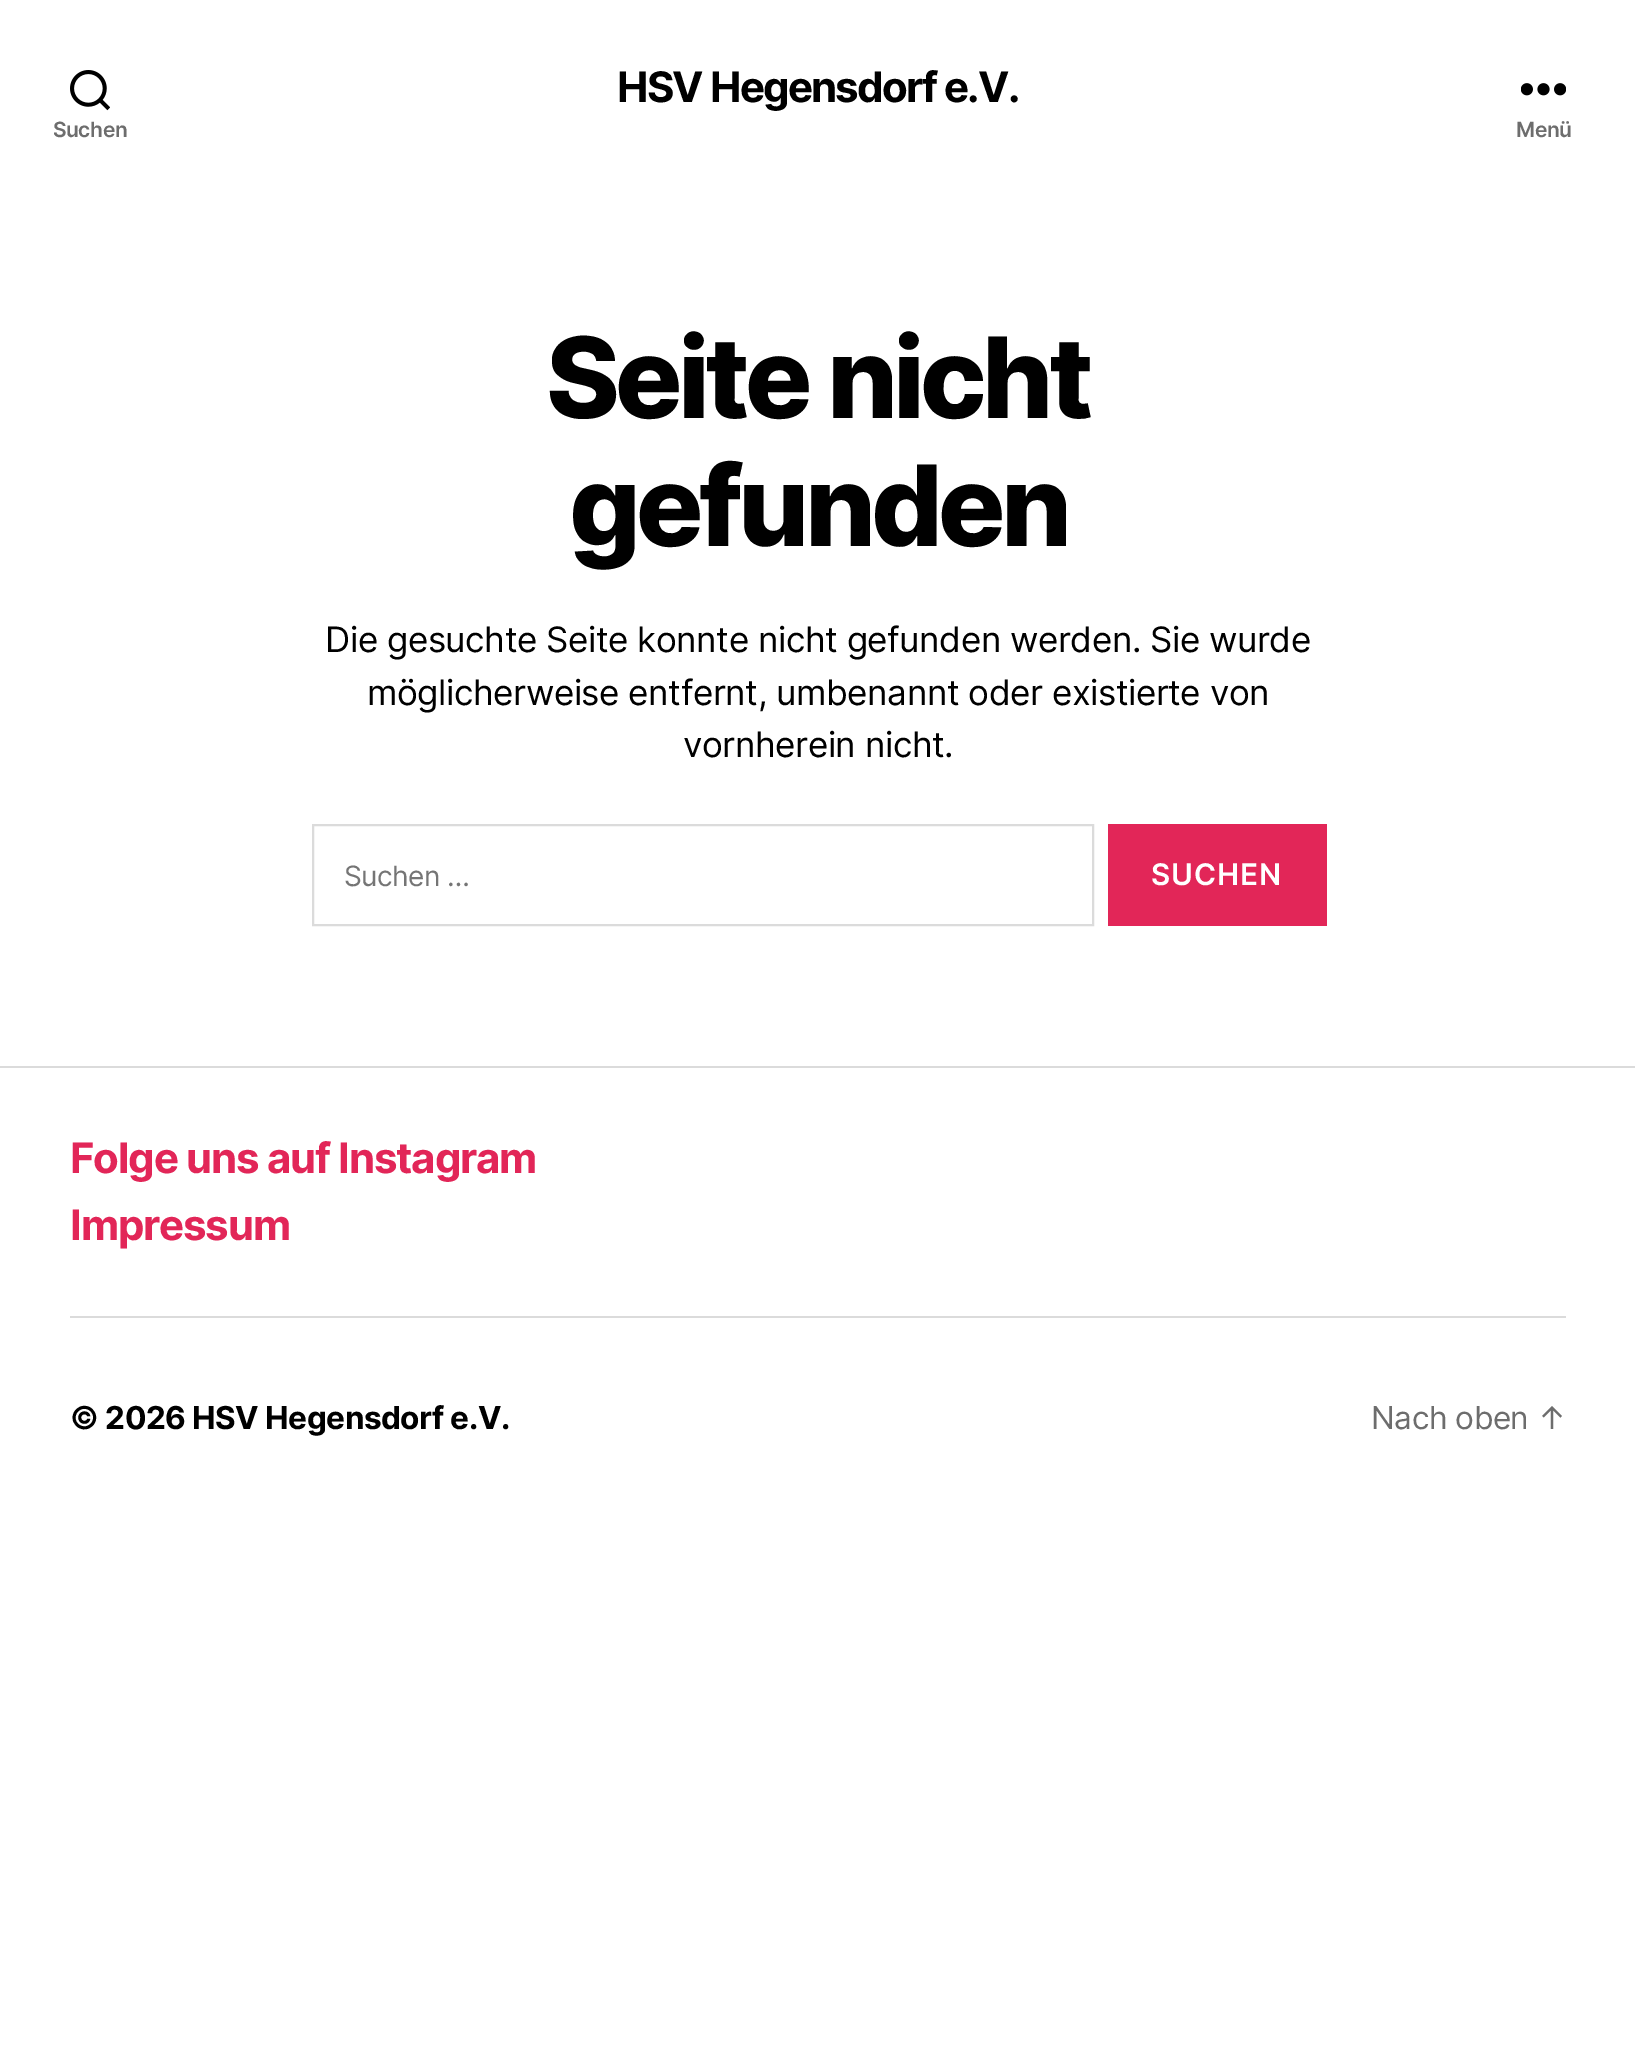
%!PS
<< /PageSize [1635 2063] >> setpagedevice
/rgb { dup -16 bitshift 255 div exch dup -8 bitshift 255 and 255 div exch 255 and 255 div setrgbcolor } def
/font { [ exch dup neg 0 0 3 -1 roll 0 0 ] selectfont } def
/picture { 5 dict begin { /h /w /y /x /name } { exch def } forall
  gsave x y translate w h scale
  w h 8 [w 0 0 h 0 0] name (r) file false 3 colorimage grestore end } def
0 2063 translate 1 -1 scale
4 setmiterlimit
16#FFFFFF rgb
0 0 1635 2063 rectfill
/Inter-Bold 42 font
16#000000 rgb
617 102 moveto -1.75 0 (HSV Hegensdorf e.V.) ashow
(pic1.raw) 70 70 40 41 picture
/Inter-SemiBold 21 font
16#6D6D6D rgb
53 137 moveto -0.47 0 (Suchen) ashow
(pic2.raw) 1521 83 45 13 picture
1516 137 moveto -0.47 0 (Menü) ashow
/Inter-ExtraBold 112 font
16#000000 rgb
546 418 moveto -4.75 0 (Seite nicht) ashow
569 546 moveto -4.75 0 (gefunden) ashow
/Inter-Regular 35 font
325 652 moveto -0.47 0 (Die gesuchte Seite konnte nicht gefunden werden. Sie wurde) ashow
367 705 moveto -0.47 0 (möglicherweise entfernt, umbenannt oder existierte von) ashow
683 757 moveto -0.47 0 (vornherein nicht.) ashow
16#DBDBDB rgb
2 setlinewidth
313 825 780 100 rectstroke
/Inter-Regular 28 font
16#757575 rgb
344 886 moveto -0.5 0 (Suchen …) ashow
16#E22658 rgb
1108 824 219 102 rectfill
/Inter-SemiBold 29.75 font
16#FFFFFF rgb
1151 885 moveto 1 0 (SUCHEN) ashow
16#DBDBDB rgb
0 1066 1635 2 rectfill
70 1316 1496 2 rectfill
/Inter-Bold 42 font
16#E22658 rgb
70 1173 moveto -1.2 0 (Folge uns auf Instagram) ashow
70 1240 moveto -1.2 0 (Impressum) ashow
/Inter-Bold 31.5 font
16#000000 rgb
70 1429 moveto -0.47 0 (© 2026 HSV Hegensdorf e.V.) ashow
/Inter-Regular 31.5 font
16#6D6D6D rgb
1371 1429 moveto -0.47 0 (Nach oben ↑) ashow
showpage
